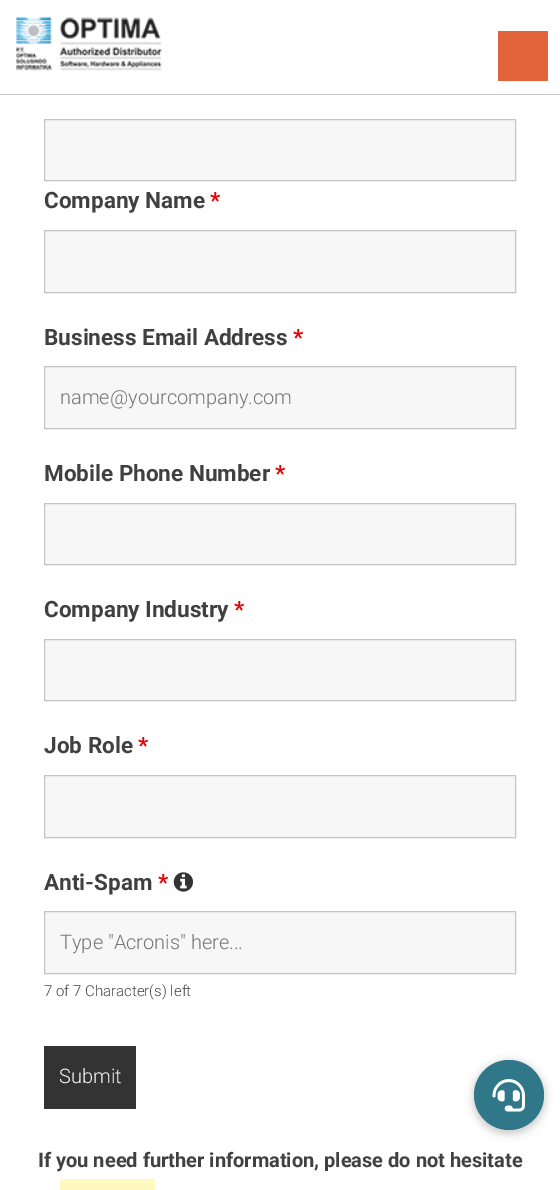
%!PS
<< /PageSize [560 1190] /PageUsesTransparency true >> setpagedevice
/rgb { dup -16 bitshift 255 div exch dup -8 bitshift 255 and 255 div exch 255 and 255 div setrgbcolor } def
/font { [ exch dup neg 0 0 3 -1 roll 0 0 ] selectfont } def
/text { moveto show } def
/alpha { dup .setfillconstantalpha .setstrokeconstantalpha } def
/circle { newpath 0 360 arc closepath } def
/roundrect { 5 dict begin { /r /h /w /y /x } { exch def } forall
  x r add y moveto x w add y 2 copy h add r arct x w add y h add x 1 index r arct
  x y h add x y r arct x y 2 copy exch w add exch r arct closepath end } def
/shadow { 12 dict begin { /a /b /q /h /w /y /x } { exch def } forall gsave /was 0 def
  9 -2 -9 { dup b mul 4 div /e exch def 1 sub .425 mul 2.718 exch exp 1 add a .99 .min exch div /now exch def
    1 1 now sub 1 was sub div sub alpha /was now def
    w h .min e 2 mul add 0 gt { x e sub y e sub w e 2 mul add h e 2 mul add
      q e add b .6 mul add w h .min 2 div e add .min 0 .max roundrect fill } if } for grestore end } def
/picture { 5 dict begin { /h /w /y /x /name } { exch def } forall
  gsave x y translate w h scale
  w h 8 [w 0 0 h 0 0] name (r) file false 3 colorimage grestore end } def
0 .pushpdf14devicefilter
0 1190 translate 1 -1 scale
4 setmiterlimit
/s1 { /Roboto-Bold 22.5 font 16#404040 rgb } def
/s2 { /Roboto-Bold 22.5 font 16#E80000 rgb } def
/s3 { /Roboto-Light 20 font 16#757575 rgb } def
/s4 { /Roboto-Light 15 font 16#404040 rgb } def
/s5 { /Roboto-Light 20 font 16#F7F7F7 rgb } def
/s6 { /Roboto-Bold 20 font 16#404040 rgb } def
16#FFFFFF rgb
0 0 560 1190 rectfill
16#CCCCCC rgb
0 94 560 1 rectfill
(pic1.raw) 16 17 146 54 picture
16#E3633B rgb
498 31 50 50 rectfill
16#F7F7F7 rgb
44.5 119.5 moveto 515.5 119.5 lineto 515.5 180.5 lineto 44.5 180.5 lineto closepath gsave fill grestore
16#C4C4C4 rgb
stroke
s1
(Company Name) 44 208 text
s2
(*) 210 208 text
16#F7F7F7 rgb
44.5 230.5 moveto 515.5 230.5 lineto 515.5 292.5 lineto 44.5 292.5 lineto closepath gsave fill grestore
16#C4C4C4 rgb
stroke
s1
(Business Email Address) 44 345 text
s2
(*) 293 345 text
16#F7F7F7 rgb
44.5 366.5 moveto 515.5 366.5 lineto 515.5 428.5 lineto 44.5 428.5 lineto closepath gsave fill grestore
16#C4C4C4 rgb
stroke
s3
(name@yourcompany.com) 60 404 text
s1
(Mobile Phone Number) 44 481 text
s2
(*) 275 481 text
16#F7F7F7 rgb
44.5 503.5 moveto 515.5 503.5 lineto 515.5 564.5 lineto 44.5 564.5 lineto closepath gsave fill grestore
16#C4C4C4 rgb
stroke
s1
(Company Industry) 44 617 text
s2
(*) 234 617 text
16#F7F7F7 rgb
44.5 639.5 moveto 515.5 639.5 lineto 515.5 700.5 lineto 44.5 700.5 lineto closepath gsave fill grestore
16#C4C4C4 rgb
stroke
s1
(Job Role) 44 753 text
s2
(*) 138 753 text
16#F7F7F7 rgb
44.5 775.5 moveto 515.5 775.5 lineto 515.5 837.5 lineto 44.5 837.5 lineto closepath gsave fill grestore
16#C4C4C4 rgb
stroke
s1
(Anti-Spam) 44 890 text
s2
(*) 158 890 text
(pic2.raw) 173 872 20 20 picture
16#F7F7F7 rgb
44.5 911.5 moveto 515.5 911.5 lineto 515.5 973.5 lineto 44.5 973.5 lineto closepath gsave fill grestore
16#C4C4C4 rgb
stroke
s3
(Type "Acronis" here...) 60 949 text
s4
(7 of 7 Character\(s\) left) 44 996 text
16#333333 rgb
44 1046 92 63 rectfill
s5
(Submit) 59 1083 text
s6
(If you need further information, please do not hesitate) 38 1167 text
16#FFF9C0 rgb
60 1179 95 11 rectfill
16#000000 rgb
473 1061 72 73 36 4 0.2 shadow
16#2F7789 rgb
509 1095 35 circle fill
(pic3.raw) 492 1079 33 33 picture
.poppdf14devicefilter showpage
